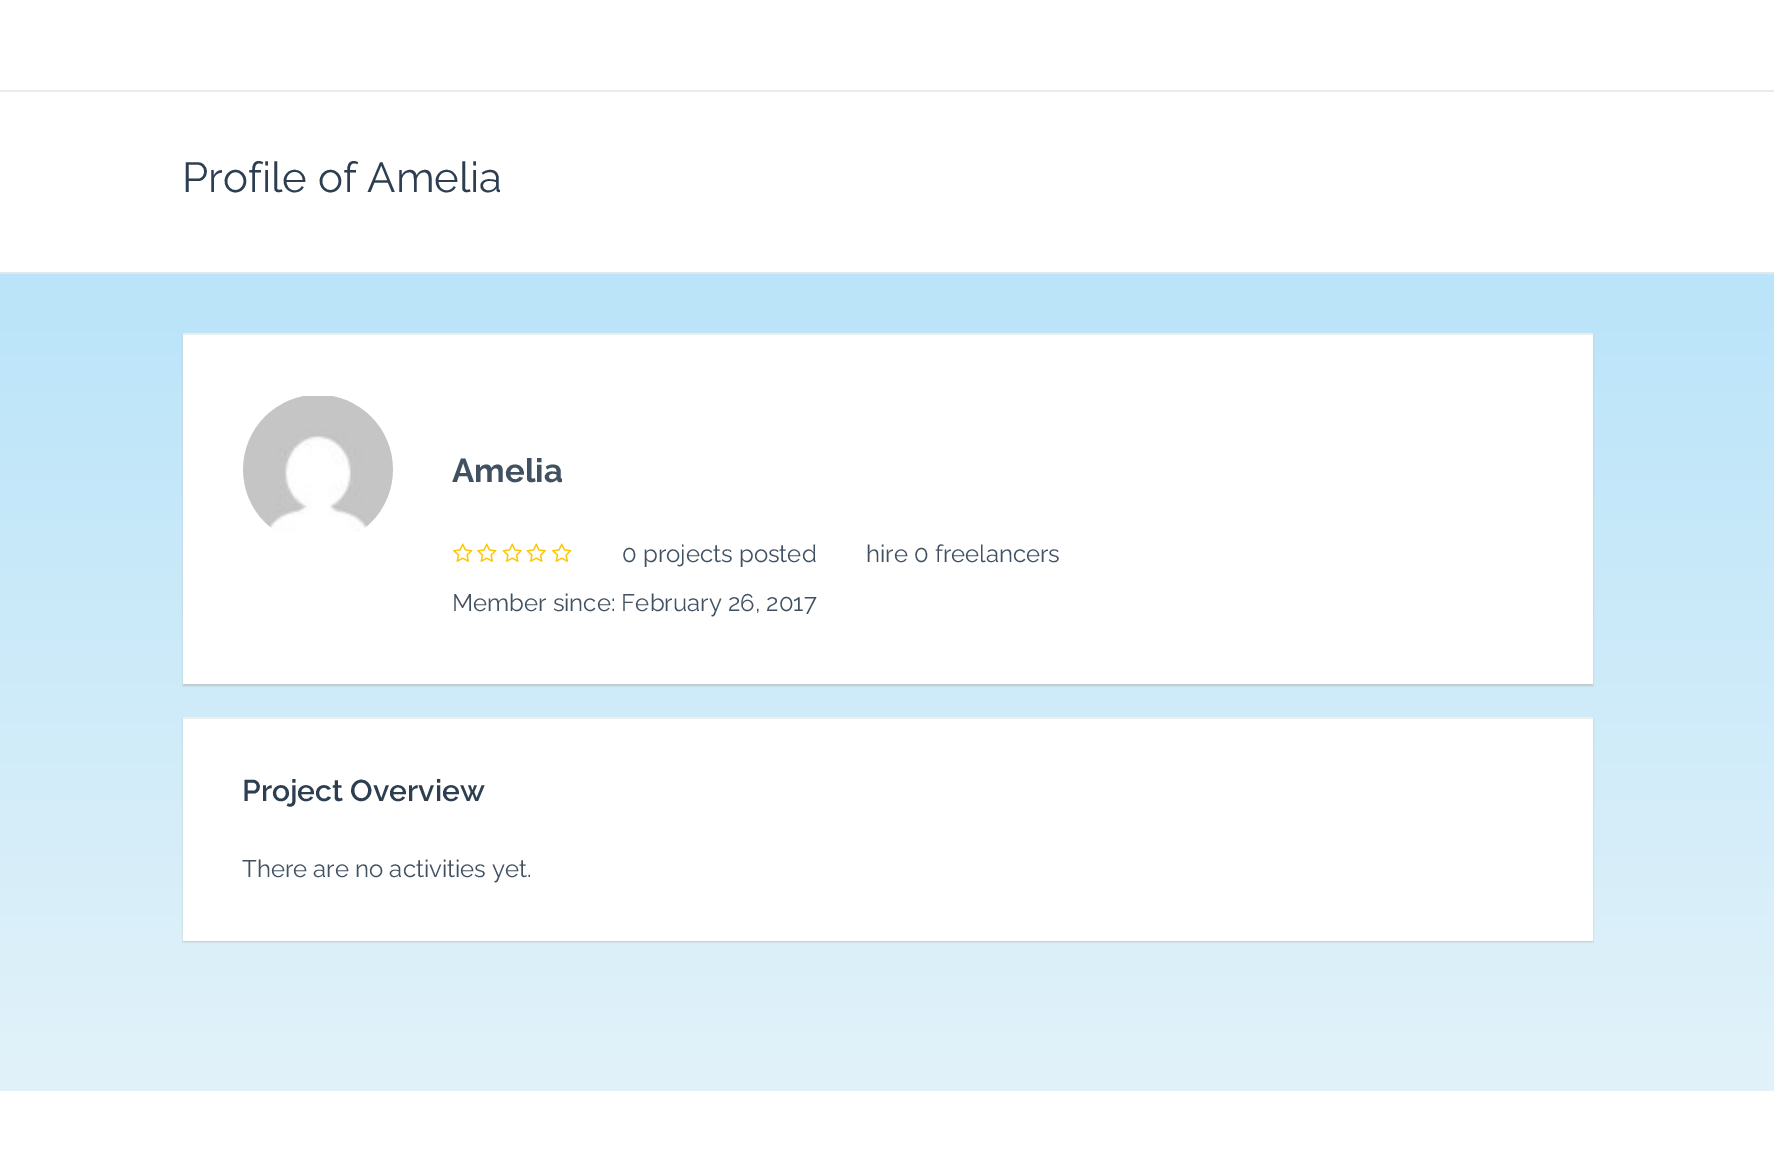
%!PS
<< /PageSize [1774 1172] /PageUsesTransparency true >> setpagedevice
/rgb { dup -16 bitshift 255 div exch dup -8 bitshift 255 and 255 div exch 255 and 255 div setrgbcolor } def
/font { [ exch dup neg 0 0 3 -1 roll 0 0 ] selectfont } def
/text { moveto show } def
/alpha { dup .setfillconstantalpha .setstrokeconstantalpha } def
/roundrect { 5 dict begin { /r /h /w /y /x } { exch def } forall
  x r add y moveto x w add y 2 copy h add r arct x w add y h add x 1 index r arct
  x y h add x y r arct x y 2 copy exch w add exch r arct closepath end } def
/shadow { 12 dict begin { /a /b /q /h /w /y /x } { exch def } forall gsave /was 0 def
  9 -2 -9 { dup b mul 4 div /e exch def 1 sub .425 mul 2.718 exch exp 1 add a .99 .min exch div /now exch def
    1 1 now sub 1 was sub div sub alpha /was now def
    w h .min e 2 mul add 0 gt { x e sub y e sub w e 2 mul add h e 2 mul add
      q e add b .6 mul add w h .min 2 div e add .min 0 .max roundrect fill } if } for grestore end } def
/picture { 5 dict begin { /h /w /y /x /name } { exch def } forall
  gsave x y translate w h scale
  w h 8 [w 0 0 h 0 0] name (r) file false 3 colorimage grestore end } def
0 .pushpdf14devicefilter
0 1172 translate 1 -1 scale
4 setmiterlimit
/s1 { /Raleway-Regular 42 font 16#2C3E50 rgb } def
/s2 { /Raleway-Bold 33 font 16#415161 rgb } def
/s3 { /Raleway-Regular 24 font 16#415161 rgb } def
/s4 { /Raleway-SemiBold 30 font 16#2C3E50 rgb } def
16#FFFFFF rgb
0 0 1774 1172 rectfill
gsave 0 274 moveto 1774 274 lineto 1774 1091 lineto 0 1091 lineto closepath clip newpath
<< /ShadingType 2 /ColorSpace /DeviceRGB /Coords [887 0 887 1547] /Extend [true true] /Function << /FunctionType 2 /Domain [0 1] /C0 [0.678 0.878 0.976] /C1 [0.976 0.976 0.976] /N 1 >> >> shfill grestore
16#E9ECEF rgb
0 90 1774 2 rectfill
16#E4E7EA rgb
0 272 1774 2 rectfill
s1
(Profile of Amelia) 182 192 text
16#B9B8B8 rgb
183 335 1410 351 0 1 0.75 shadow
16#FFFFFF rgb
183 335 1410 349 rectfill
16#EDEDED rgb
183 333 1410 2 rectfill
(pic1.raw) 243 396 150 136 picture
s2
(Amelia) 452 482 text
(pic2.raw) 453 543 20 19 picture
(pic2.raw) 477 543 20 19 picture
(pic3.raw) 502 543 20 19 picture
(pic3.raw) 526 543 20 19 picture
(pic2.raw) 552 543 20 19 picture
s3
(0 projects posted) 622 562 text
(hire 0 freelancers) 866 562 text
(Member since: February 26, 2017) 452 611 text
16#B9B8B8 rgb
183 719 1410 223 0 1 0.75 shadow
16#FFFFFF rgb
183 719 1410 222 rectfill
16#EDEDED rgb
183 717 1410 2 rectfill
s4
(Project Overview) 242 801 text
s3
(There are no activities yet.) 242 877 text
.poppdf14devicefilter showpage
